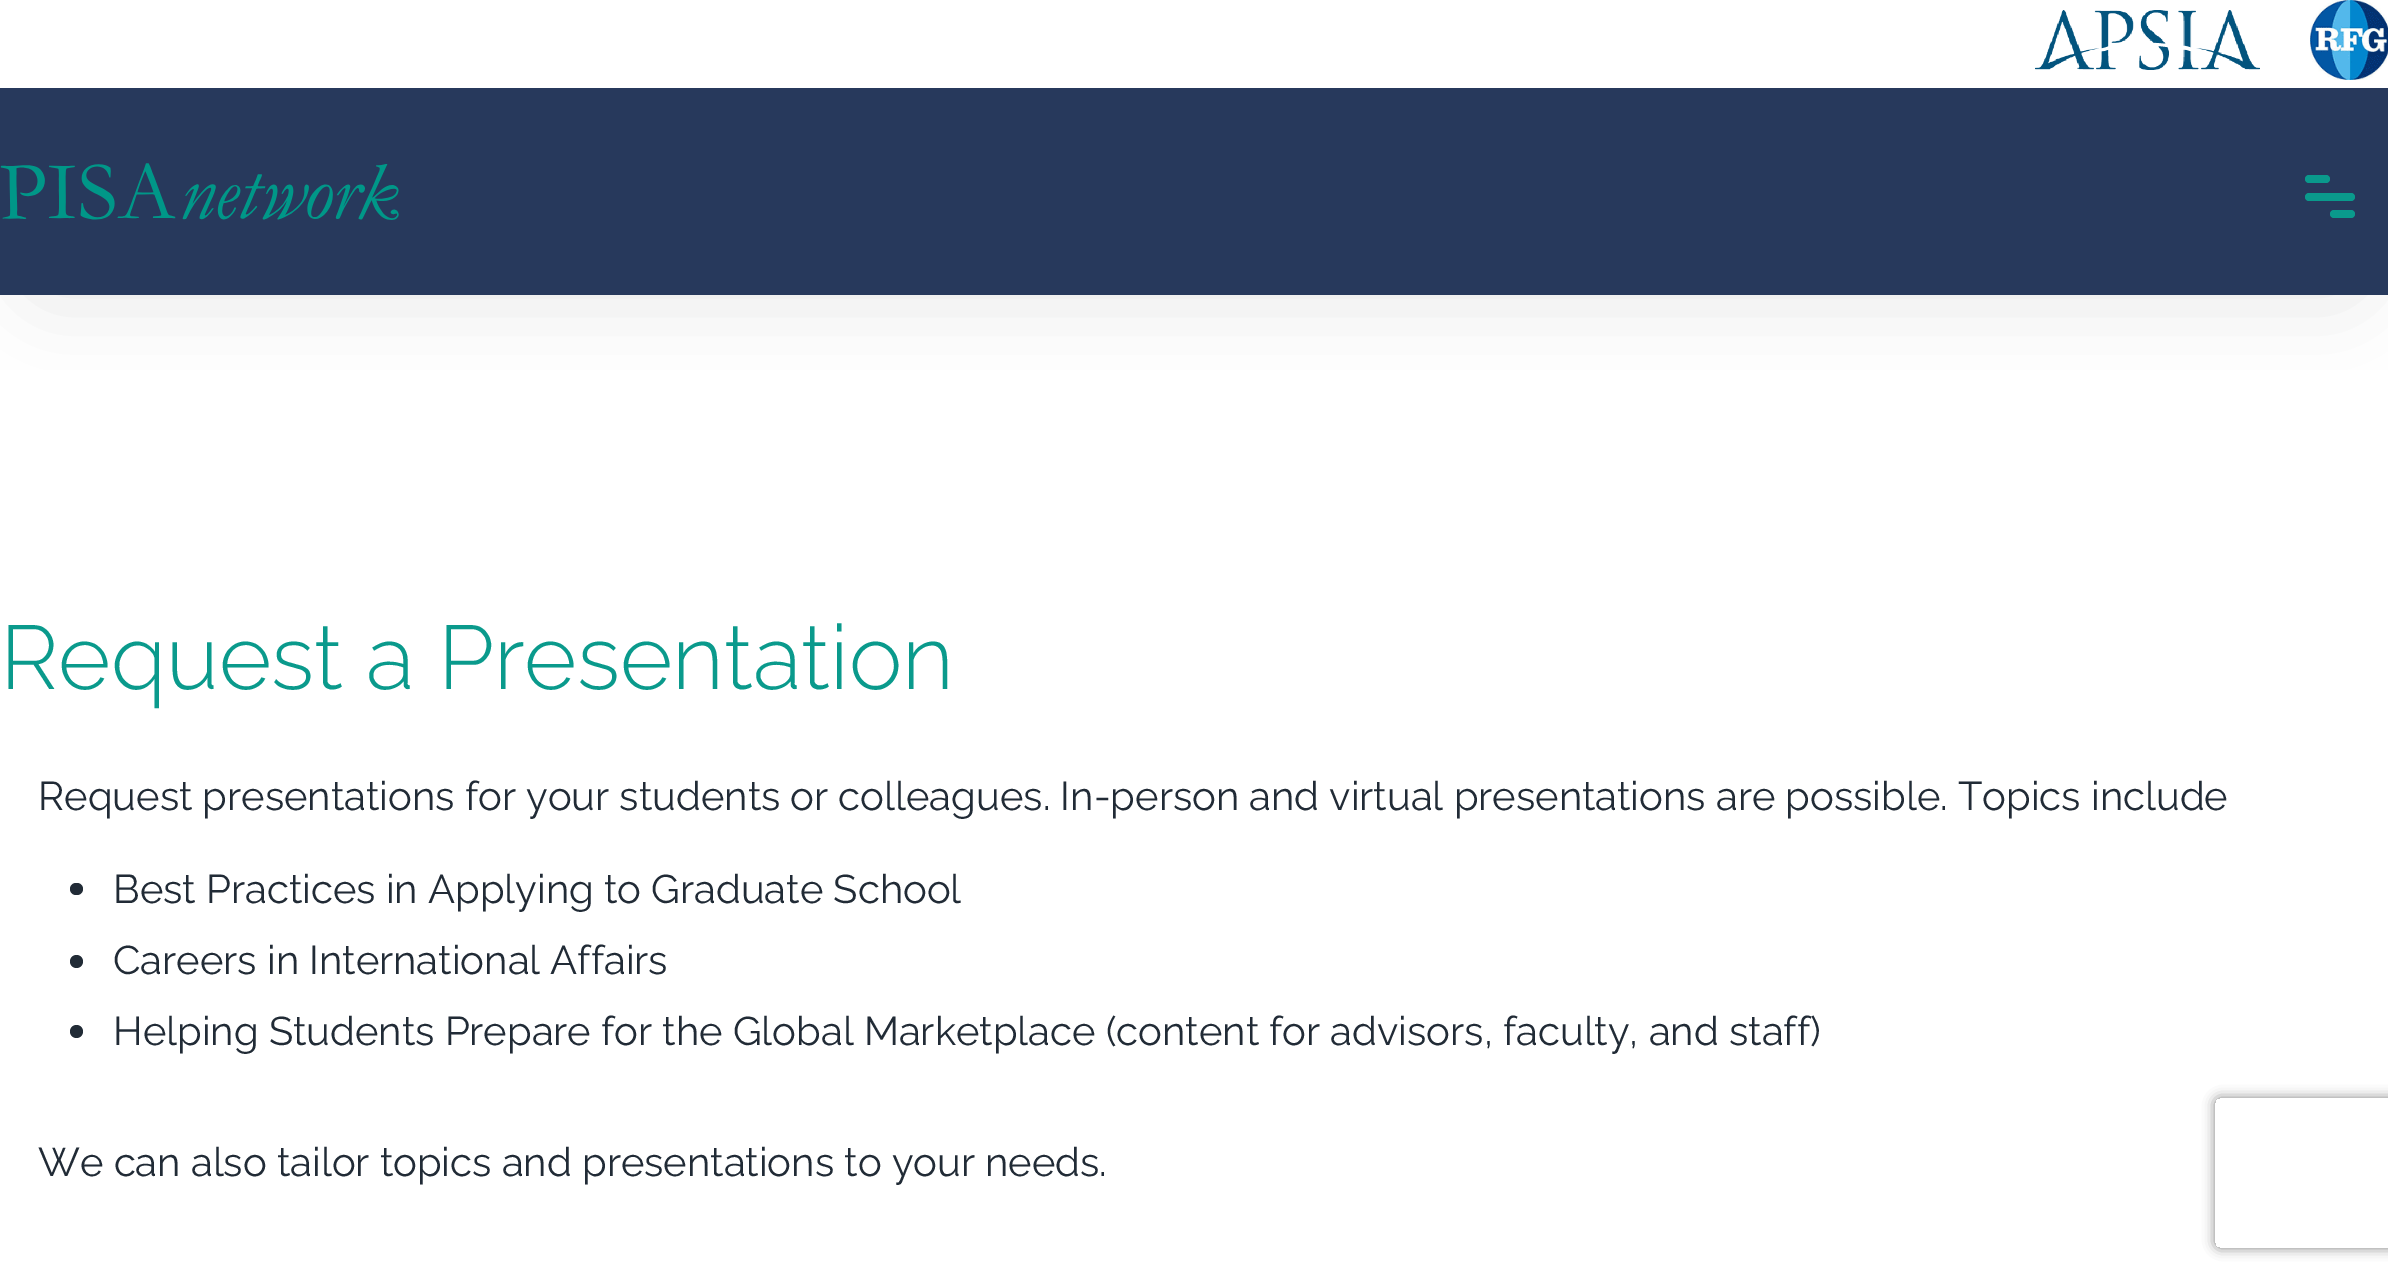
%!PS
<< /PageSize [2388 1282] /PageUsesTransparency true >> setpagedevice
/rgb { dup -16 bitshift 255 div exch dup -8 bitshift 255 and 255 div exch 255 and 255 div setrgbcolor } def
/font { [ exch dup neg 0 0 3 -1 roll 0 0 ] selectfont } def
/text { moveto show } def
/alpha { dup .setfillconstantalpha .setstrokeconstantalpha } def
/circle { newpath 0 360 arc closepath } def
/roundrect { 5 dict begin { /r /h /w /y /x } { exch def } forall
  x r add y moveto x w add y 2 copy h add r arct x w add y h add x 1 index r arct
  x y h add x y r arct x y 2 copy exch w add exch r arct closepath end } def
/shadow { 12 dict begin { /a /b /q /h /w /y /x } { exch def } forall gsave /was 0 def
  9 -2 -9 { dup b mul 4 div /e exch def 1 sub .425 mul 2.718 exch exp 1 add a .99 .min exch div /now exch def
    1 1 now sub 1 was sub div sub alpha /was now def
    w h .min e 2 mul add 0 gt { x e sub y e sub w e 2 mul add h e 2 mul add
      q e add b .6 mul add w h .min 2 div e add .min 0 .max roundrect fill } if } for grestore end } def
/picture { 5 dict begin { /h /w /y /x /name } { exch def } forall
  gsave x y translate w h scale
  w h 8 [w 0 0 h 0 0] name (r) file false 3 colorimage grestore end } def
0 .pushpdf14devicefilter
0 1282 translate 1 -1 scale
4 setmiterlimit
/s1 { /Raleway-Light 90 font 16#0A9A8C rgb } def
/s2 { /Raleway-Regular 40 font 16#212B36 rgb } def
16#FFFFFF rgb
0 0 2388 1282 rectfill
(pic1.raw) 2035 10 225 60 picture
(pic2.raw) 2310 0 78 80 picture
16#27395C rgb
0 88 2388 207 rectfill
gsave
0 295 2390 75 rectclip
16#212B36 rgb
13 183 2365 125 62.5 37.5 0.1 shadow
grestore
(pic3.raw) 0 163 399 57 picture
16#0A9A8C rgb
2305 175 25 8 4 roundrect fill
2305 193 50 8 4 roundrect fill
2330 210 25 8 4 roundrect fill
s1
(Request a Presentation) 0 689 text
s2
(Request presentations for your students or colleagues. In-person and virtual presentations are possible. Topics include) 38 810 text
70 883 13 12 6 roundrect fill
(Best Practices in Applying to Graduate School) 113 903 text
76.5 961.5 6.5 circle fill
(Careers in International Affairs) 113 974 text
76.5 1031.5 6.5 circle fill
(Helping Students Prepare for the Global Marketplace \(content for advisors, faculty, and staff\)) 113 1045 text
(We can also tailor topics and presentations to your needs.) 38 1176 text
gsave
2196 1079 moveto 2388 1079 lineto 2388 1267 lineto 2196 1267 lineto closepath 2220 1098 moveto 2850 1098 lineto 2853 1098 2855 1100 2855 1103 curveto 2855 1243 lineto 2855 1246 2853 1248 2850 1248 curveto 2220 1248 lineto 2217 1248 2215 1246 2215 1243 curveto 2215 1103 lineto 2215 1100 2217 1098 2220 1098 curveto closepath eoclip newpath
16#808080 rgb
2215 1098 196 150 5 6 1 shadow
grestore
.poppdf14devicefilter showpage
